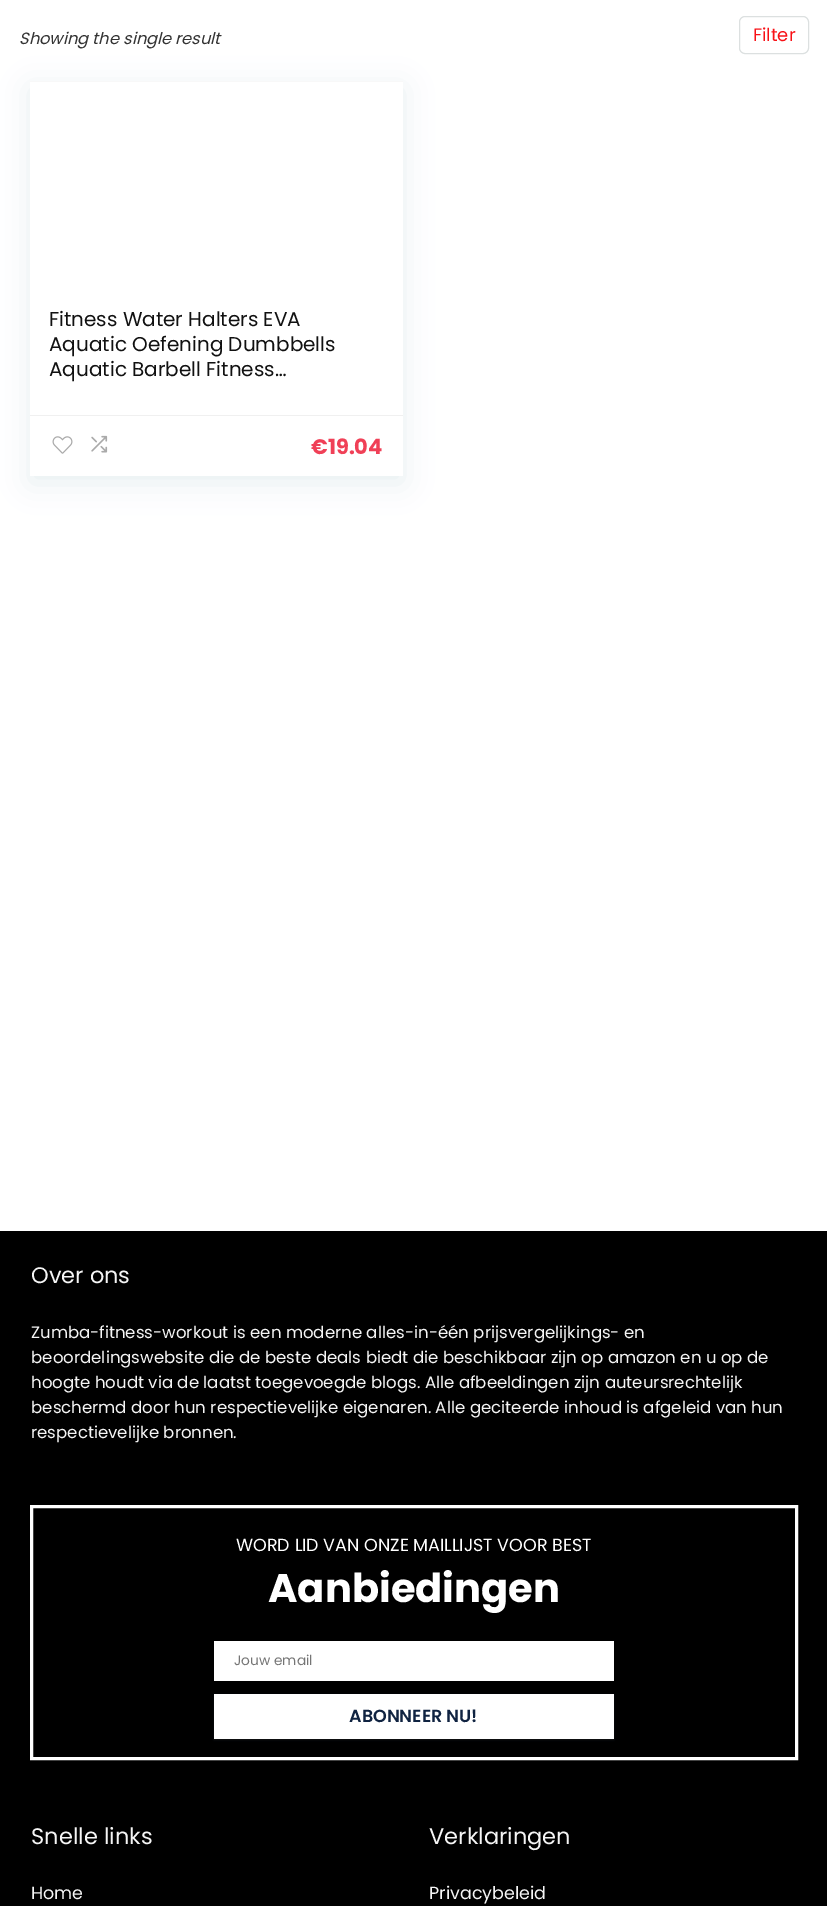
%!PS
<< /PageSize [827 1906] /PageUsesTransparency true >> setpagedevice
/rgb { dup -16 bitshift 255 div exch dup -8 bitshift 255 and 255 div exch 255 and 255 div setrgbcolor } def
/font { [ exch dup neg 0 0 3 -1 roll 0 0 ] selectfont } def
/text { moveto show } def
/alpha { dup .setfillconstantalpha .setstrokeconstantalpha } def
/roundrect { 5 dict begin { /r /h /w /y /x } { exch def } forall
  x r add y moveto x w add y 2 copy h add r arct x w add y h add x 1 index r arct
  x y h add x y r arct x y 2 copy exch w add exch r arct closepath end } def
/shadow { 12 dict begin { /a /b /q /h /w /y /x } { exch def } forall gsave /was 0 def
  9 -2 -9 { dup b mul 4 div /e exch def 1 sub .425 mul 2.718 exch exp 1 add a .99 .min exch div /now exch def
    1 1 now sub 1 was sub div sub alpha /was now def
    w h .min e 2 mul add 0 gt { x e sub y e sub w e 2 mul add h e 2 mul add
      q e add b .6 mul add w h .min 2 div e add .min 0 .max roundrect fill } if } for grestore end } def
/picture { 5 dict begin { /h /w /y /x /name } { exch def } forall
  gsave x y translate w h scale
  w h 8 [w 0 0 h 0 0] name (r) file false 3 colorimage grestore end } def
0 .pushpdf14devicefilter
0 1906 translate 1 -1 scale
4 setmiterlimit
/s1 { /Poppins-Italic 16.25 font 16#333333 rgb } def
/s2 { /Poppins-Regular 18 font 16#F81116 rgb } def
/s3 { /Poppins-Regular 20 font 16#111111 rgb } def
/s4 { /Poppins-Bold 21 font 16#F04057 rgb } def
/s5 { /Poppins-Regular 22.5 font 16#F5F5F5 rgb } def
/s6 { /Poppins-Regular 16.6 font 16#F5F5F5 rgb } def
/s7 { /Poppins-Regular 17.5 font 16#FFFFFF rgb } def
/s8 { /Poppins-Bold 40 font 16#FFFFFF rgb } def
/s9 { /Poppins-Regular 13.75 font 16#757575 rgb } def
/s10 { /Poppins-SemiBold 17.5 font 16#102341 rgb } def
/s11 { /Poppins-Regular 17.5 font 16#F5F5F5 rgb } def
16#FFFFFF rgb
0 0 827 1906 rectfill
s1
(Showing the single result) 19 44 text
16#DCE0E0 rgb
739.5 16.5 69 37 5.5 roundrect stroke
s2
(Filter) 753 41 text
16#BCCFDB rgb
30 88 373 395 0 14.5 0.35 shadow
16#FFFFFF rgb
30 82 373 394 rectfill
16#F8F8F8 rgb
30 81 373 1 rectfill
s3
(Fitness Water Halters EVA) 49 326 text
(Aquatic Oefening Dumbbells) 49 351 text
(Aquatic Barbell Fitness…) 49 376 text
16#F0F0F0 rgb
30 415 373 1 rectfill
(pic1.raw) 52 436 21 18 picture
(pic2.raw) 91 435 17 18 picture
s4
(€19.04) 311 454 text
16#000000 rgb
0 1231 827 675 rectfill
s5
(Over ons) 31 1283 text
s6
(Zumba-fitness-workout is een moderne alles-in-één prijsvergelijkings- en) 31 1338 text
(beoordelingswebsite die de beste deals biedt die beschikbaar zijn op amazon en u op de) 31 1363 text
(hoogte houdt via de laatst toegevoegde blogs. Alle afbeeldingen zijn auteursrechtelijk) 31 1388 text
(beschermd door hun respectievelijke eigenaren. Alle geciteerde inhoud is afgeleid van hun) 31 1413 text
(respectievelijke bronnen.) 31 1438 text
16#FFFFFF rgb
3 setlinewidth
31.5 1506.5 765 252 rectstroke
s7
(WORD LID VAN ONZE MAILLIJST VOOR BEST) 236 1551 text
s8
(Aanbiedingen) 268 1602 text
214 1641 400 40 rectfill
s9
(Jouw email) 234 1665 text
16#3C4043 rgb
214 1695 400 45 0 1 0.3 shadow
16#FFFFFF rgb
214 1694 400 45 rectfill
s10
(ABONNEER NU!) 349 1722 text
s5
(Snelle links) 31 1844 text
s11
(Home) 31 1899 text
s5
(Verklaringen) 429 1844 text
s11
(Privacybeleid) 429 1899 text
.poppdf14devicefilter showpage
